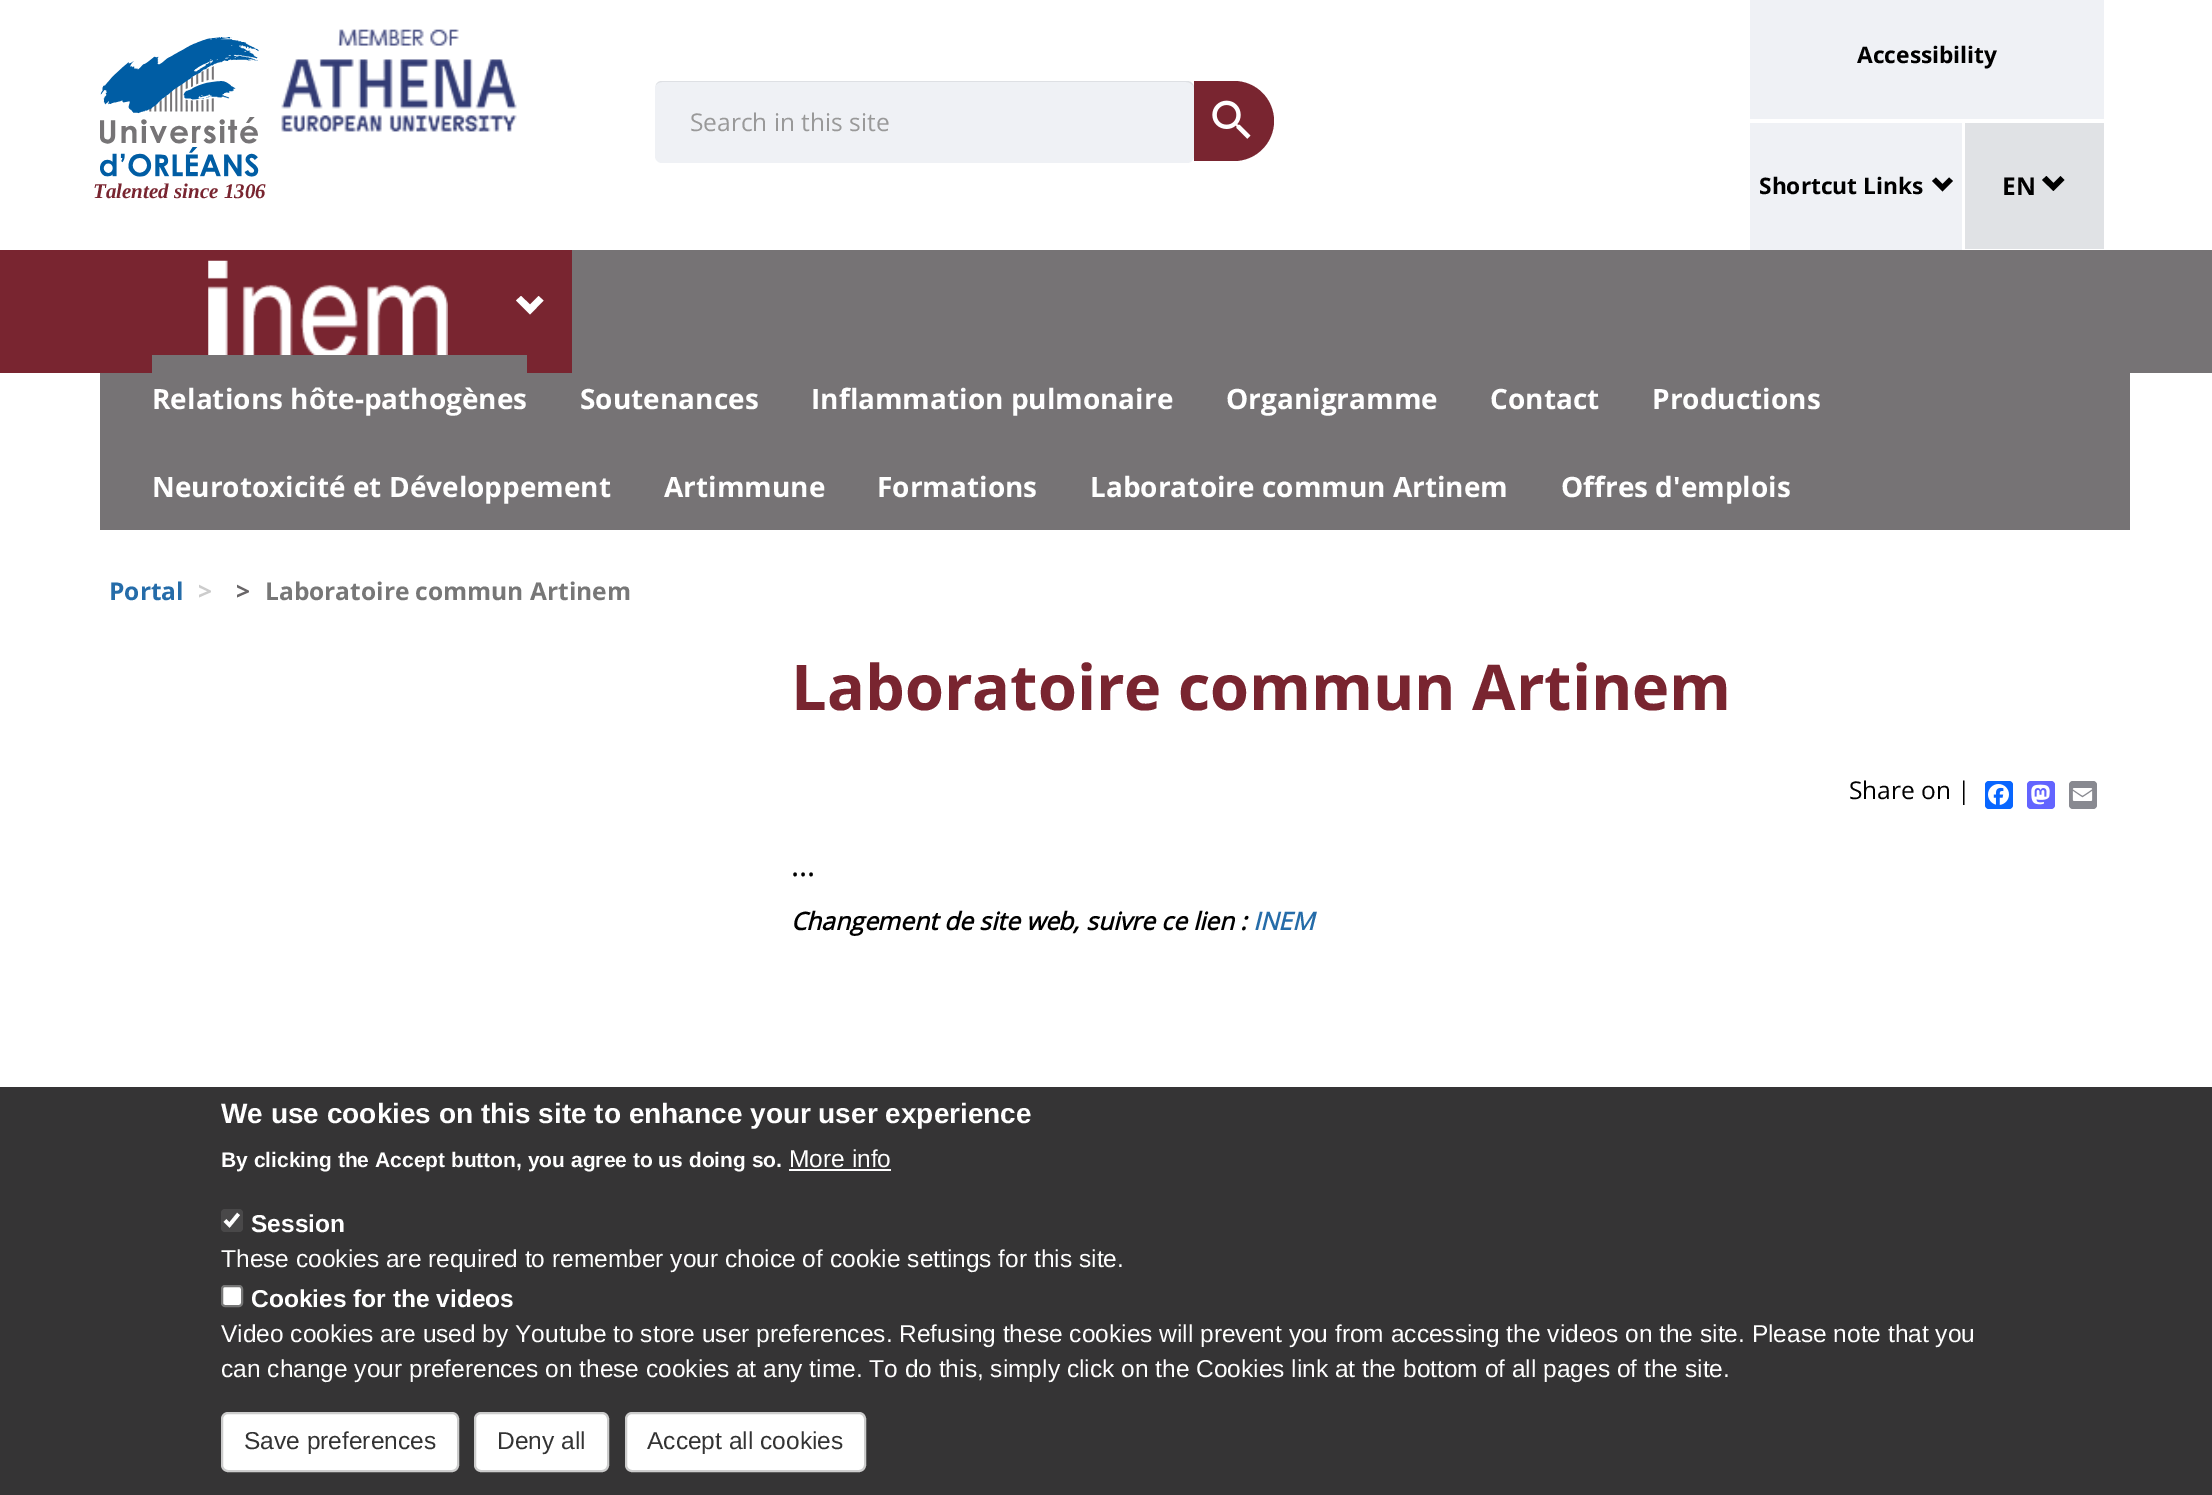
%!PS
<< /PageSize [2212 1495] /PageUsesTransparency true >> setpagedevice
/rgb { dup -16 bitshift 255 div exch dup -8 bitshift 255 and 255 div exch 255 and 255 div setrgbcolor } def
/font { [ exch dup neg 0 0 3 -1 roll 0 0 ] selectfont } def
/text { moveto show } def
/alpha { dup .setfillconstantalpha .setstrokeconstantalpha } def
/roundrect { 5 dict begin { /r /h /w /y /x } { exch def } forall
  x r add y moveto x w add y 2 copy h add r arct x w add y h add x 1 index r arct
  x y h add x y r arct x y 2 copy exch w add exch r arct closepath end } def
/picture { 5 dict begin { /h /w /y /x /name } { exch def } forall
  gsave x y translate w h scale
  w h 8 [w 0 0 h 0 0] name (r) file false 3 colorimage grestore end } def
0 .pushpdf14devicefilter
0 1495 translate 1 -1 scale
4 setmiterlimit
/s1 { /OpenSans-Regular 24.5 font 16#999999 rgb } def
/s2 { /LiberationSerif-BoldItalic 21 font 16#792530 rgb } def
/s3 { /OpenSans-Bold 22.75 font 16#000000 rgb } def
/s4 { /OpenSans-Bold 24.5 font 16#000000 rgb } def
/s5 { /OpenSans-Bold 28 font 16#FFFFFF rgb } def
/s6 { /OpenSans-Bold 24.5 font 16#256CA9 rgb } def
/s7 { /OpenSans-Bold 24.5 font 16#CCCCCC rgb } def
/s8 { /OpenSans-Bold 24.5 font 16#696668 rgb } def
/s9 { /OpenSans-Bold 24.5 font 16#777777 rgb } def
/s10 { /OpenSans-Bold 63 font 16#792530 rgb } def
/s11 { /OpenSans-Regular 24.5 font 16#000000 rgb } def
/s12 { /OpenSans-Regular 31 font 16#000000 rgb } def
/s13 { /OpenSans-BoldItalic 24.5 font 16#000000 rgb } def
/s14 { /OpenSans-BoldItalic 24.5 font 16#256CA9 rgb } def
/s15 { /LiberationSans-Bold 28 font 16#FFFFFF rgb } def
/s16 { /LiberationSans-Bold 21 font 16#FFFFFF rgb } def
/s17 { /LiberationSans-Regular 24.5 font 16#FFFFFF rgb } def
/s18 { /LiberationSans-Bold 24.5 font 16#FFFFFF rgb } def
/s19 { /LiberationSans-Regular 24.5 font 16#333333 rgb } def
16#FFFFFF rgb
0 0 2212 1495 rectfill
16#EFF1F5 rgb
655 81 539 82 7 roundrect fill
0.07 alpha
16#000000 rgb
662 82 moveto 1186 82 lineto 1190 82 1194 85 1194 89 curveto 1194 88 lineto 1194 84 1191 81 1187 81 curveto 662 81 lineto 659 81 657 82 656 85 curveto 657 83 660 82 662 82 curveto closepath fill
1 alpha
s1
(Search in this site) 690 131 text
16#792530 rgb
1194 81 moveto 1234 81 lineto 1256 81 1274 99 1274 121 curveto 1274 143 1256 161 1234 161 curveto 1194 161 lineto closepath fill
(pic1.raw) 1212 100 39 39 picture
(pic2.raw) 281 29 236 103 picture
(pic3.raw) 100 37 159 140 picture
s2
(Talented since 1306) 93 198 text
16#EFF1F5 rgb
1750 0 354 119 rectfill
s3
(Accessibility) 1857 63 text
16#EFF1F5 rgb
1750 123 212 127 rectfill
s3
(Shortcut Links) 1759 194 text
1953 181 moveto 1942.5 191.5 lineto 1932 181 lineto 1936 177.5 lineto 1942.5 184 lineto 1949 177.5 lineto closepath fill
16#E0E2E5 rgb
1965 123 139 126 rectfill
s4
(EN) 2002 195 text
2064.5 180 moveto 2053.5 191 lineto 2042 180 lineto 2046.5 176 lineto 2053.5 183 lineto 2060.5 176 lineto closepath fill
gsave 0 250 moveto 82 250 lineto 82 373 lineto 0 373 lineto closepath clip newpath
<< /ShadingType 2 /ColorSpace /DeviceRGB /Coords [174 -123 2038 746] /Extend [true true] /Function << /FunctionType 3 /Domain [0 1] /Functions [<< /FunctionType 2 /Domain [0 1] /C0 [0.475 0.145 0.188] /C1 [0.475 0.145 0.188] /N 1 >> << /FunctionType 2 /Domain [0 1] /C0 [1 1 1] /C1 [1 1 1] /N 1 >>] /Bounds [0.16] /Encode [0 1 0 1] >> >> shfill grestore
16#767375 rgb
572 250 1640 123 rectfill
100 355 2030 175 rectfill
16#792530 rgb
82 250 490 123 rectfill
(pic4.raw) 208 260 240 95 picture
16#FFFFFF rgb
543.5 300.5 moveto 530 314.5 lineto 516 300.5 lineto 521 296 lineto 530 304.5 lineto 538.5 296 lineto closepath fill
16#767375 rgb
152 355 375 18 rectfill
s5
(Relations hôte-pathogènes) 152 409 text
(Soutenances) 580 409 text
(Inflammation pulmonaire) 811 409 text
(Organigramme) 1226 409 text
(Contact) 1490 409 text
(Productions) 1652 409 text
(Neurotoxicité et Développement) 152 497 text
(Artimmune) 664 497 text
(Formations) 877 497 text
(Laboratoire commun Artinem) 1090 497 text
(Offres d'emplois) 1561 497 text
s6
(Portal) 109 600 text
s7
(>) 198 600 text
s8
(>) 236 600 text
s9
(Laboratoire commun Artinem) 265 600 text
s10
(Laboratoire commun Artinem) 791 710 text
s11
(Share on |) 1849 799 text
16#0866FF rgb
1985 781 28 28 4 roundrect fill
(pic5.raw) 1988 784 21 21 picture
16#6364FF rgb
2027 781 28 28 4 roundrect fill
(pic6.raw) 2031 784 19 21 picture
16#888990 rgb
2069 781 28 28 4 roundrect fill
(pic7.raw) 2072 788 21 13 picture
s12
(...) 791 876 text
s13
(Changement de site web, suivre ce lien :) 791 930 text
s14
(INEM) 1253 930 text
16#353435 rgb
0 1087 2212 408 rectfill
s15
(We use cookies on this site to enhance your user experience) 221 1123 text
s16
(By clicking the Accept button, you agree to us doing so.) 221 1167 text
s17
(More info) 789 1167 text
789 1169 102 2 rectfill
16#494849 rgb
221 1209 22 23 4 roundrect fill
16#FFFFFF rgb
3.6 setlinewidth
225 1220.5 moveto 229.5 1225 lineto 238.5 1214 lineto stroke
s18
(Session) 251 1232 text
s17
(These cookies are required to remember your choice of cookie settings for this site.) 221 1267 text
222 1286 20 20 3 roundrect gsave fill grestore
16#767676 rgb
2 setlinewidth
stroke
s18
(Cookies for the videos) 251 1307 text
s17
(Video cookies are used by Youtube to store user preferences. Refusing these cookies will prevent you from accessing the videos on the site. Please note that you) 221 1342 text
(can change your preferences on these cookies at any time. To do this, simply click on the Cookies link at the bottom of all pages of the site.) 221 1377 text
222 1413 236 58 6 roundrect gsave fill grestore
16#CCCCCC rgb
stroke
s19
(Save preferences) 244 1449 text
16#FFFFFF rgb
475 1413 133 58 6 roundrect gsave fill grestore
16#CCCCCC rgb
stroke
s19
(Deny all) 497 1449 text
16#FFFFFF rgb
626 1413 239 58 6 roundrect gsave fill grestore
16#CCCCCC rgb
stroke
s19
(Accept all cookies) 647 1449 text
.poppdf14devicefilter showpage
